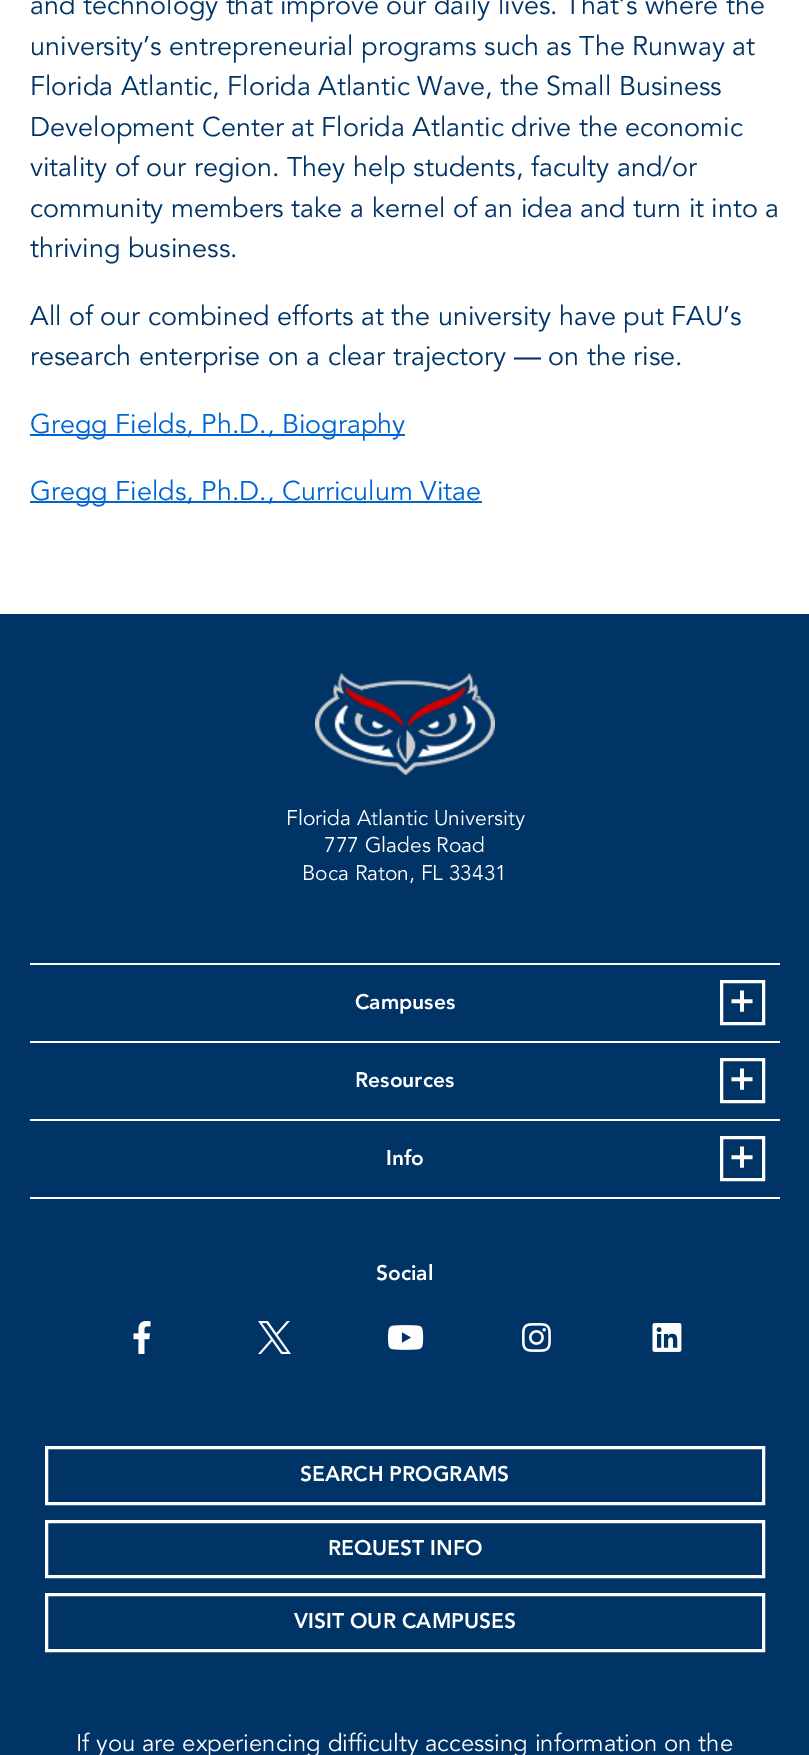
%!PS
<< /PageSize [809 1755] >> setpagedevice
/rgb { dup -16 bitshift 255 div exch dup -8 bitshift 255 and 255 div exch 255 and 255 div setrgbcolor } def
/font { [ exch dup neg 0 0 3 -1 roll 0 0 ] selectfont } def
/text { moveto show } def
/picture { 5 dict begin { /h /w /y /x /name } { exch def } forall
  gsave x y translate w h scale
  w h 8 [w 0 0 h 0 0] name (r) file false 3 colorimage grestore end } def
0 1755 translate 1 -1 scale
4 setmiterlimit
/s1 { /Avenir-Regular 27 font 16#003366 rgb } def
/s2 { /Avenir-Regular 27 font 16#0065D3 rgb } def
/s3 { /Avenir-Regular 21 font 16#FFFFFF rgb } def
/s4 { /Avenir-Black 21 font 16#FFFFFF rgb } def
/s5 { /Avenir-Black 39 font 16#FFFFFF rgb } def
/s6 { /Avenir-Regular 24 font 16#FFFFFF rgb } def
16#FFFFFF rgb
0 0 809 1755 rectfill
s1
(and technology that improve our daily lives. That’s where the) 30 14 text
(university’s entrepreneurial programs such as The Runway at) 30 55 text
(Florida Atlantic, Florida Atlantic Wave, the Small Business) 30 95 text
(Development Center at Florida Atlantic drive the economic) 30 136 text
(vitality of our region. They help students, faculty and/or) 30 176 text
(community members take a kernel of an idea and turn it into a) 30 217 text
(thriving business.) 30 257 text
(All of our combined efforts at the university have put FAU’s) 30 325 text
(research enterprise on a clear trajectory — on the rise.) 30 365 text
16#0065D3 rgb
30 434 375 2 rectfill
(Gregg Fields, Ph.D., Biography) 30 433 text
30 501 452 2 rectfill
(Gregg Fields, Ph.D., Curriculum Vitae) 30 500 text
16#003366 rgb
0 614 809 1141 rectfill
(pic1.raw) 315 673 180 102 picture
s3
(Florida Atlantic University) 286 825 text
(777 Glades Road) 324 852 text
(Boca Raton, FL 33431) 302 880 text
30 963 750 2 rectfill
30 1041 750 2 rectfill
s4
(Campuses) 355 1009 text
3 setlinewidth
721.5 981.5 42 42 rectstroke
s5
(+) 729 1013 text
30 1119 750 2 rectfill
s4
(Resources) 355 1087 text
721.5 1059.5 42 42 rectstroke
s5
(+) 729 1091 text
30 1197 750 2 rectfill
s4
(Info) 386 1165 text
721.5 1137.5 42 42 rectstroke
s5
(+) 729 1169 text
s4
(Social) 376 1280 text
(pic2.raw) 133 1321 18 33 picture
(pic3.raw) 258 1321 33 33 picture
(pic4.raw) 387 1325 37 25 picture
(pic5.raw) 522 1323 29 29 picture
(pic6.raw) 652 1323 30 29 picture
46.5 1447.5 717 56 rectstroke
(SEARCH PROGRAMS) 300 1481 text
46.5 1521.5 717 55 rectstroke
(REQUEST INFO) 328 1555 text
46.5 1594.5 717 56 rectstroke
(VISIT OUR CAMPUSES) 294 1628 text
s6
(If you are experiencing difficulty accessing information on the) 76 1751 text
showpage
